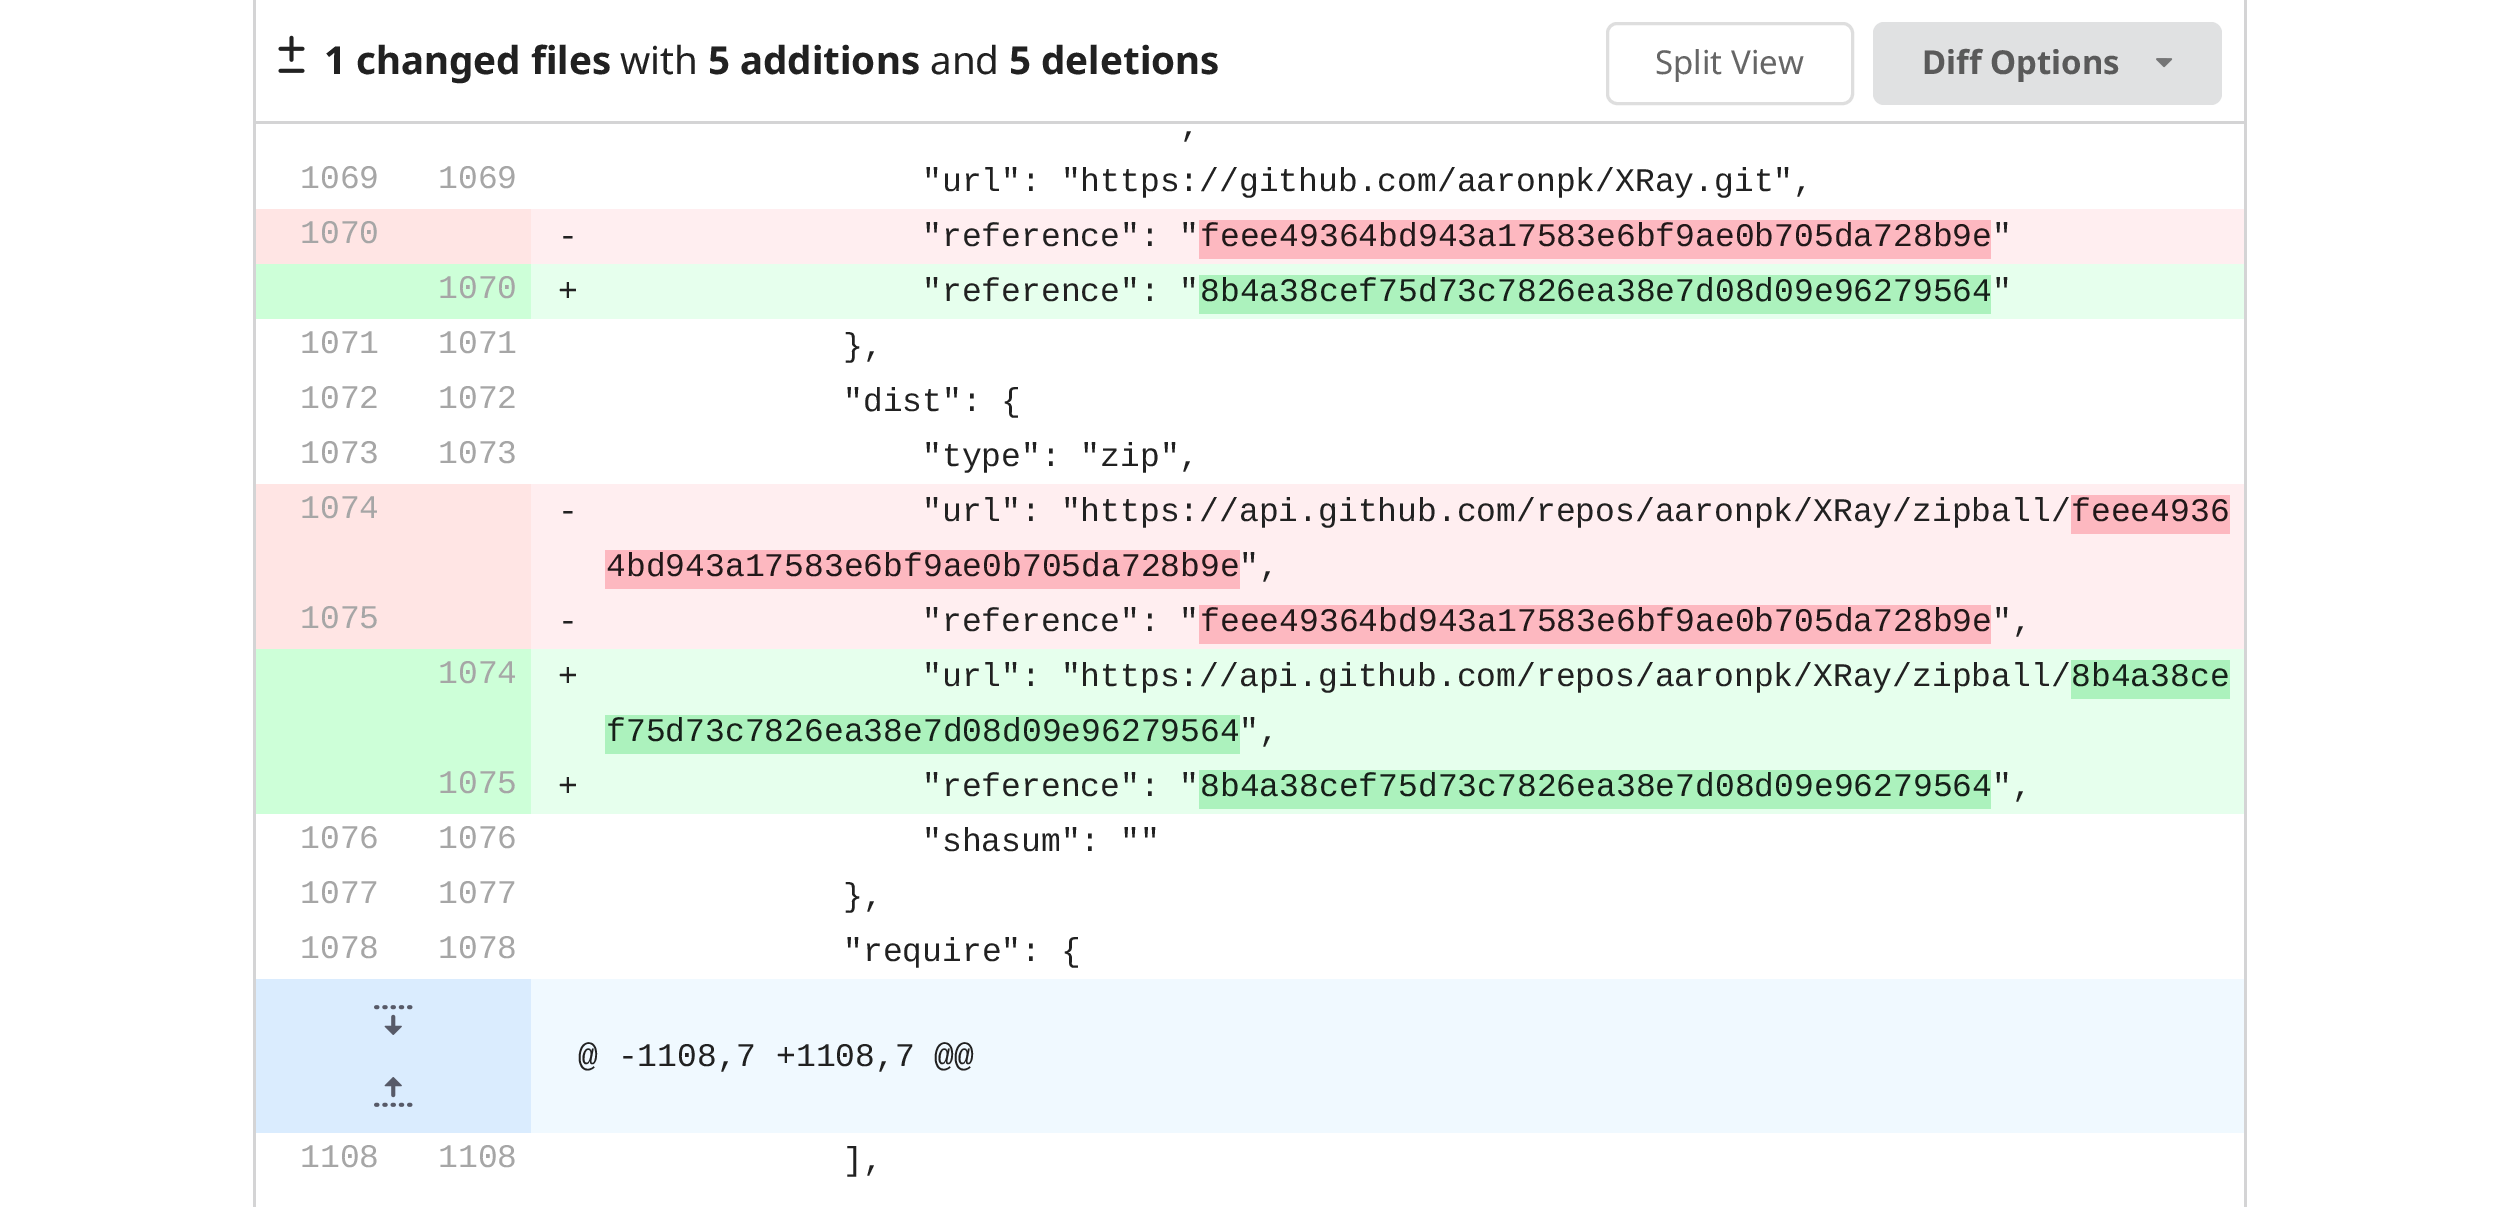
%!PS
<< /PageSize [2499 1207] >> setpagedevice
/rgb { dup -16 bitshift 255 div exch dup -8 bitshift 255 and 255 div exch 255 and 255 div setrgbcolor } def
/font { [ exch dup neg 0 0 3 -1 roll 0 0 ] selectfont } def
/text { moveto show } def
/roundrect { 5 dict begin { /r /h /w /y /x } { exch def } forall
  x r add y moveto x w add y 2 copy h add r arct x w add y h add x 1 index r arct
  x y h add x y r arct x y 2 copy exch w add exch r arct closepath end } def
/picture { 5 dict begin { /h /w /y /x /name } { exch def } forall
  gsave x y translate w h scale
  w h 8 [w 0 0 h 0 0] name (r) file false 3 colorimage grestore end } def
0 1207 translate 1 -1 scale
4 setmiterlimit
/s1 { /NotoSans-Bold 38.5 font 16#212121 rgb } def
/s2 { /NotoSans-Regular 38.5 font 16#212121 rgb } def
/s3 { /NotoSans-Regular 33 font 16#666666 rgb } def
/s4 { /NotoSans-Bold 33 font 16#5A5A5A rgb } def
/s5 { /LiberationMono-Regular 33 font 16#212121 rgb } def
/s6 { /LiberationMono-Regular 33 font 16#A6A6A6 rgb } def
/s7 { /LiberationMono-Regular 33 font 16#211819 rgb } def
/s8 { /LiberationMono-Regular 33 font 16#161F19 rgb } def
16#FFFFFF rgb
0 0 2499 1207 rectfill
16#D4D4D5 rgb
256 121 1988 3 rectfill
(pic1.raw) 278 35 27 38 picture
s1
(1 changed files) 324 74 text
s2
(with) 620 74 text
s1
(5 additions) 708 74 text
s2
(and) 930 74 text
s1
(5 deletions) 1009 74 text
16#DEDEDE rgb
3 setlinewidth
1607.5 23.5 245 80 9.5 roundrect stroke
s3
(Split View) 1655 74 text
16#E0E1E2 rgb
1873 22 349 83 11 roundrect fill
s4
(Diff Options) 1922 74 text
(pic2.raw) 2156 58 17 10 picture
16#D4D4D5 rgb
2244 0 3 1207 rectfill
253 0 3 1207 rectfill
s5
(,) 1180 136 text
s6
(1069) 300 188 text
(1069) 438 188 text
s5
("url": "https://github.com/aaronpk/XRay.git",) 922 191 text
16#FFE5E4 rgb
256 209 275 55 rectfill
s6
(1070) 300 243 text
16#FFEEF0 rgb
531 209 1713 55 rectfill
s5
(-) 558 246 text
("reference": ") 922 246 text
16#FDB8C0 rgb
1199 220 792 39 rectfill
s7
(feee49364bd943a17583e6bf9ae0b705da728b9e) 1200 246 text
s5
(") 1992 246 text
16#CDFFD8 rgb
256 264 275 55 rectfill
s6
(1070) 438 298 text
16#E6FFED rgb
531 264 1713 55 rectfill
s5
(+) 558 301 text
("reference": ") 922 301 text
16#ACF2BD rgb
1199 275 792 39 rectfill
s8
(8b4a38cef75d73c7826ea38e7d08d09e96279564) 1200 301 text
s5
(") 1992 301 text
s6
(1071) 300 353 text
(1071) 438 353 text
s5
(},) 843 356 text
s6
(1072) 300 408 text
(1072) 438 408 text
s5
("dist": {) 843 411 text
s6
(1073) 300 463 text
(1073) 438 463 text
s5
("type": "zip",) 922 466 text
16#FFE5E4 rgb
256 484 275 110 rectfill
s6
(1074) 300 518 text
16#FFEEF0 rgb
531 484 1713 110 rectfill
s5
(-) 558 521 text
("url": "https://api.github.com/repos/aaronpk/XRay/zipball/) 922 521 text
16#FDB8C0 rgb
2071 495 159 39 rectfill
s7
(feee4936) 2071 521 text
16#FDB8C0 rgb
605 550 635 39 rectfill
s7
(4bd943a17583e6bf9ae0b705da728b9e) 606 576 text
s5
(",) 1239 576 text
16#FFE5E4 rgb
256 594 275 55 rectfill
s6
(1075) 300 628 text
16#FFEEF0 rgb
531 594 1713 55 rectfill
s5
(-) 558 631 text
("reference": ") 922 631 text
16#FDB8C0 rgb
1199 605 792 39 rectfill
s7
(feee49364bd943a17583e6bf9ae0b705da728b9e) 1200 631 text
s5
(",) 1992 631 text
16#CDFFD8 rgb
256 649 275 110 rectfill
s6
(1074) 438 683 text
16#E6FFED rgb
531 649 1713 110 rectfill
s5
(+) 558 686 text
("url": "https://api.github.com/repos/aaronpk/XRay/zipball/) 922 686 text
16#ACF2BD rgb
2071 660 159 39 rectfill
s8
(8b4a38ce) 2071 686 text
16#ACF2BD rgb
605 715 635 39 rectfill
s8
(f75d73c7826ea38e7d08d09e96279564) 606 741 text
s5
(",) 1239 741 text
16#CDFFD8 rgb
256 759 275 55 rectfill
s6
(1075) 438 793 text
16#E6FFED rgb
531 759 1713 55 rectfill
s5
(+) 558 796 text
("reference": ") 922 796 text
16#ACF2BD rgb
1199 770 792 39 rectfill
s8
(8b4a38cef75d73c7826ea38e7d08d09e96279564) 1200 796 text
s5
(",) 1992 796 text
s6
(1076) 300 848 text
(1076) 438 848 text
s5
("shasum": "") 922 851 text
s6
(1077) 300 903 text
(1077) 438 903 text
s5
(},) 843 906 text
s6
(1078) 300 958 text
(1078) 438 958 text
s5
("require": {) 843 961 text
16#F0F9FF rgb
531 979 1713 154 rectfill
16#DAECFE rgb
256 979 275 154 rectfill
(pic3.raw) 374 1005 39 30 picture
(pic4.raw) 374 1077 39 30 picture
s5
(@ -1108,7 +1108,7 @@) 578 1066 text
s6
(1108) 300 1167 text
(1108) 438 1167 text
s5
(],) 843 1170 text
showpage
